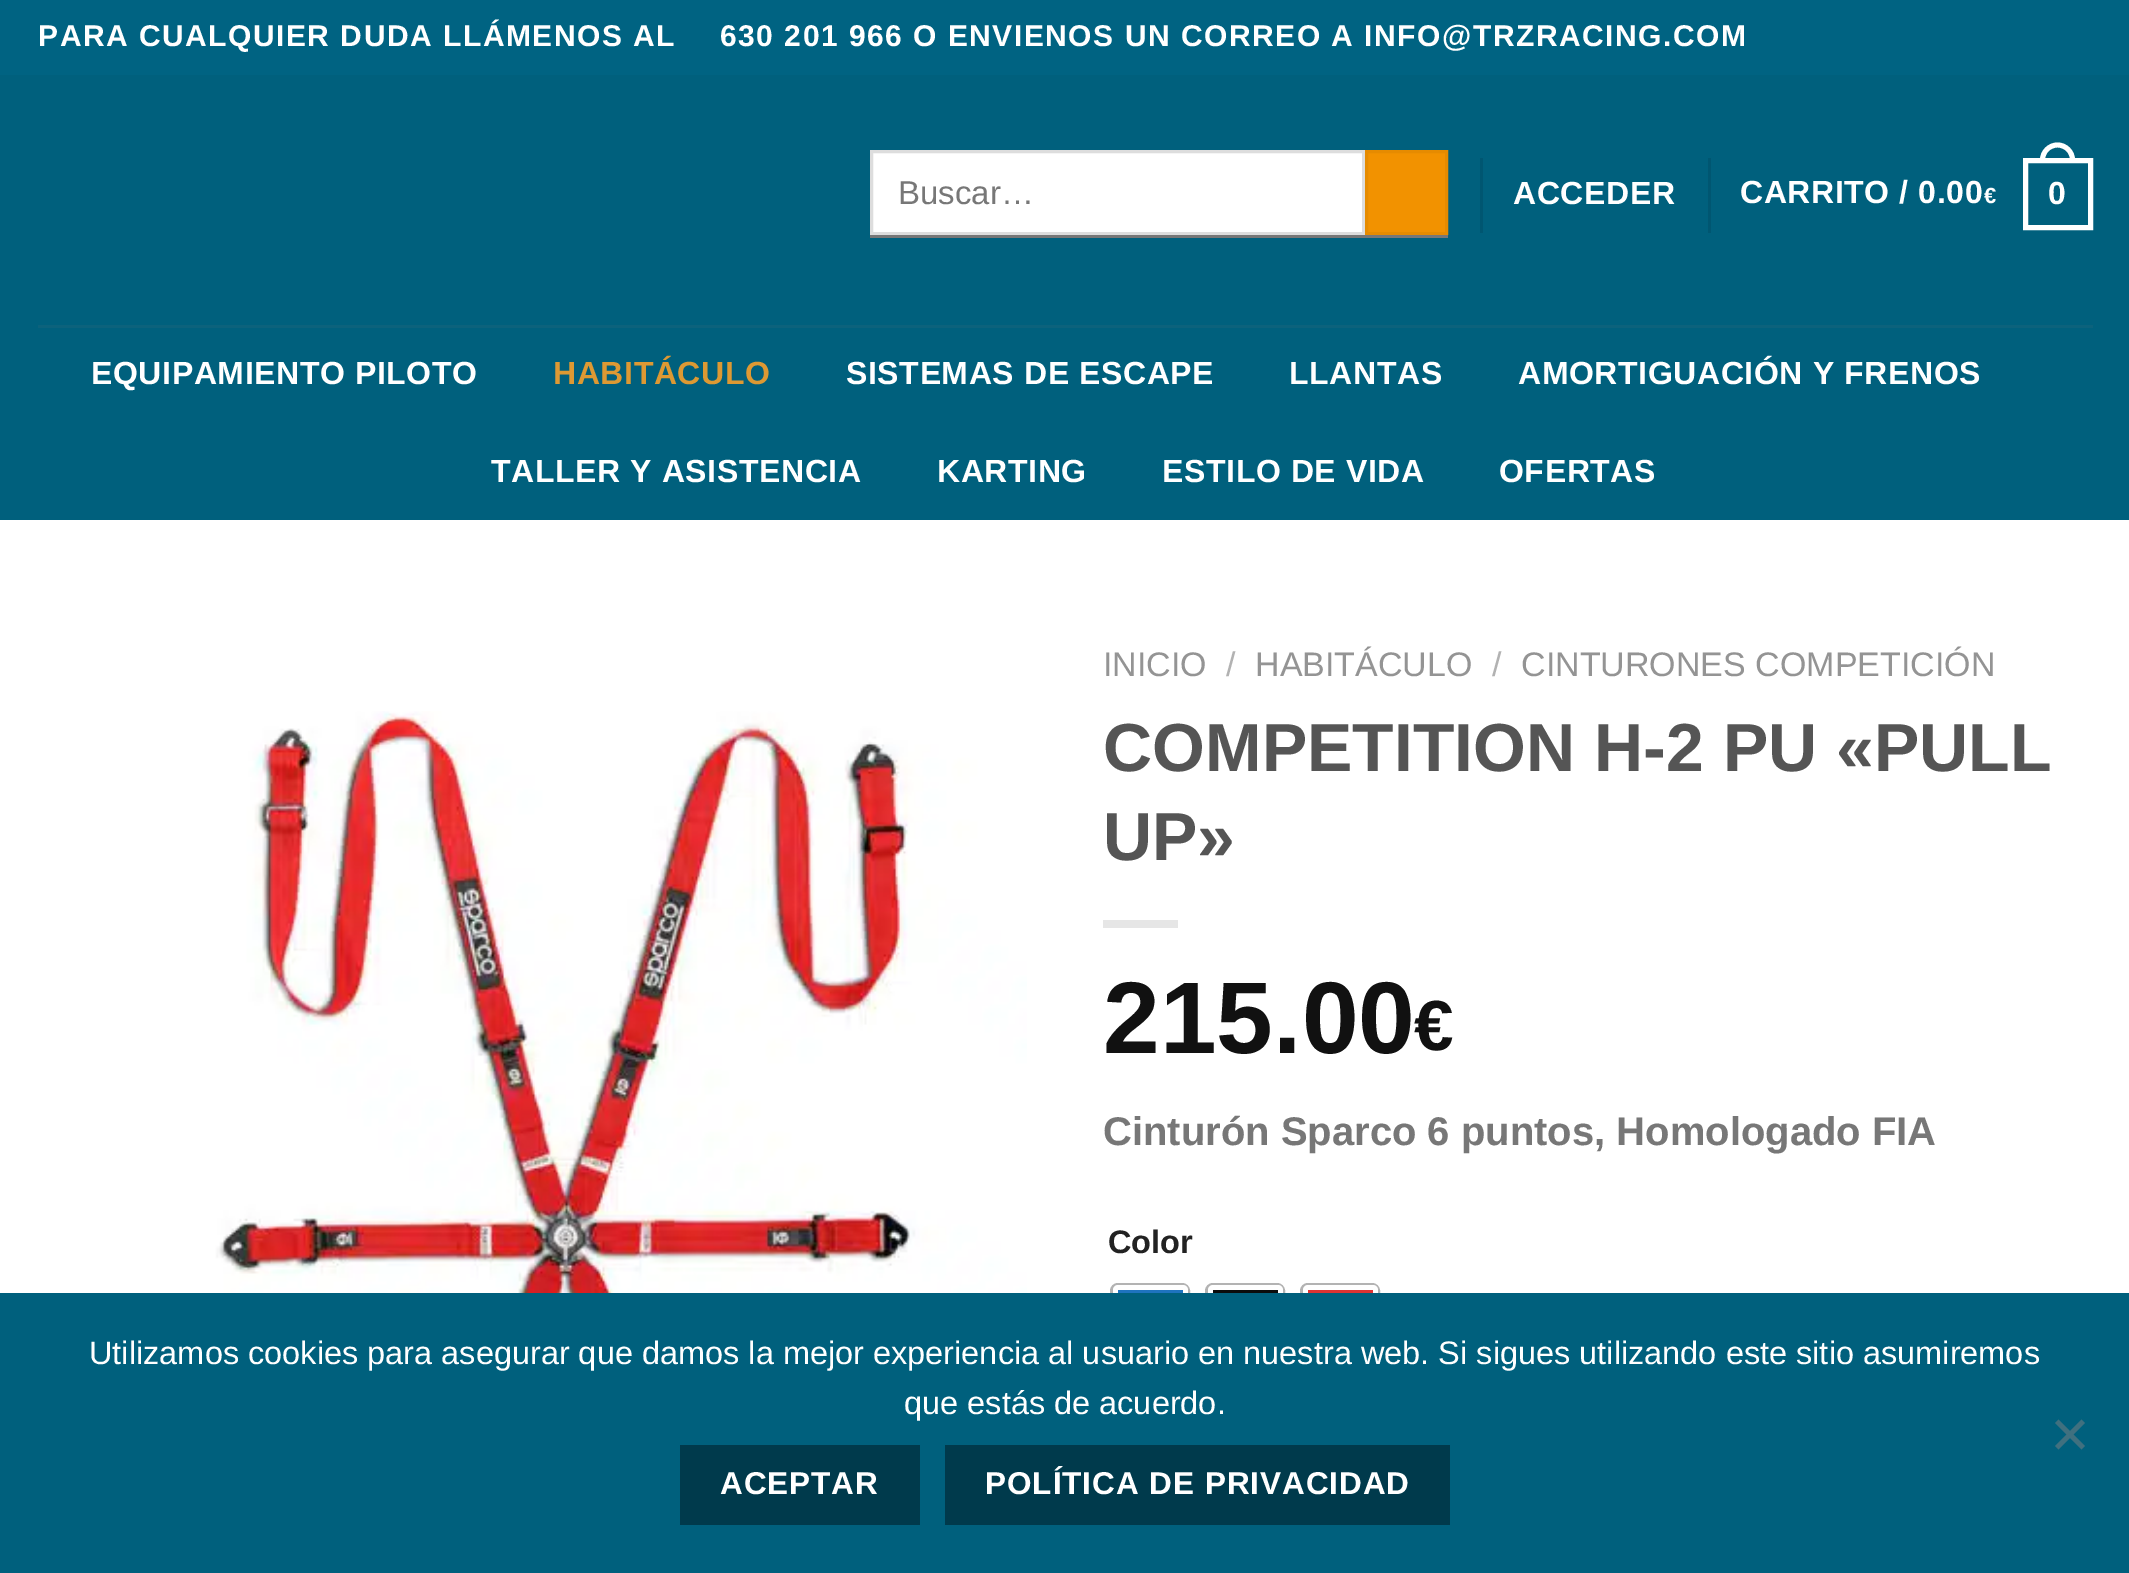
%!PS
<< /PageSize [2129 1573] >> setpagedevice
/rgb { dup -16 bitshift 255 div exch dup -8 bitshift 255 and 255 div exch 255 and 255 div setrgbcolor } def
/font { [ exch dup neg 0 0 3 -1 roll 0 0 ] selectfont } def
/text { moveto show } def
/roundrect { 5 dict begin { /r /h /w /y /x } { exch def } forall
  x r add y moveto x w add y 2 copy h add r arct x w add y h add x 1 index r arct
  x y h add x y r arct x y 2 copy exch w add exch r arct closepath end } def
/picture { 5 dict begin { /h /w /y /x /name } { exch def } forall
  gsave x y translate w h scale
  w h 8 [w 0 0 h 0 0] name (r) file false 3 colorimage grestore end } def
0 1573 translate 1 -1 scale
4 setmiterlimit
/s1 { /LiberationSans-Regular 33 font 16#777777 rgb } def
/s2 { /LiberationSans-Regular 34 font 16#949494 rgb } def
/s3 { /LiberationSans-Regular 34 font 16#B2B2B2 rgb } def
/s4 { /LiberationSans-Bold 68 font 16#555555 rgb } def
/s5 { /LiberationSans-Bold 102 font 16#111111 rgb } def
/s6 { /LiberationSans-Bold 71 font 16#111111 rgb } def
/s7 { /LiberationSans-Bold 40 font 16#777777 rgb } def
/s8 { /LiberationSans-Bold 32.5 font 16#222222 rgb } def
/s9 { /LiberationSans-Regular 32.5 font 16#FFFFFF rgb } def
16#FFFFFF rgb
0 0 2129 1573 rectfill
16#006382 rgb
0 0 2129 75 rectfill
/LiberationSans-Bold 30 font
16#FFFFFF rgb
38 46 moveto 1.5 0 (PARA CUALQUIER DUDA LLÁMENOS AL) ashow
720 46 moveto 1.5 0 (630 201 966 O ENVIENOS UN CORREO A INFO@TRZRACING.COM) ashow
16#00607D rgb
0 75 2129 445 rectfill
16#FFFFFF rgb
871.5 151.5 moveto 1363.5 151.5 lineto 1363.5 233.5 lineto 871.5 233.5 lineto closepath gsave fill grestore
16#DDDDDD rgb
3 setlinewidth
stroke
s1
(Buscar…) 898 204 text
16#F29200 rgb
1366.5 151.5 moveto 1446.5 151.5 lineto 1446.5 233.5 lineto 1366.5 233.5 lineto closepath gsave fill grestore
16#E68B00 rgb
stroke
16#777777 rgb
870 235 578 3 rectfill
16#005671 rgb
1480 158 3 75 rectfill
/LiberationSans-Bold 32 font
16#FFFFFF rgb
1513 204 moveto 0.6 0 (ACCEDER) ashow
16#005671 rgb
1708 158 3 75 rectfill
16#FFFFFF rgb
1740 203 moveto 0.6 0 (CARRITO / 0.00) ashow
/LiberationSans-Bold 22 font
1984 203 moveto 0.6 0 (€) ashow
5 setlinewidth
2025.5 160.5 65 67 rectstroke
2057.5 142.5 moveto 2067 142.5 2075 150.5 2075 160 curveto 2075 162.5 lineto 2040 162.5 lineto 2040 160 lineto 2040 150.5 2048 142.5 2057.5 142.5 curveto closepath 2057.5 147.5 moveto 2064.5 147.5 2070 153 2070 160 curveto 2070 162.5 lineto 2045 162.5 lineto 2045 160 lineto 2045 153 2050.5 147.5 2057.5 147.5 curveto closepath eofill
/LiberationSans-Bold 32 font
2048 204 moveto 0.6 0 (0) ashow
16#0C627C rgb
38 325 2055 3 rectfill
16#FFFFFF rgb
91 384 moveto 0.6 0 (EQUIPAMIENTO PILOTO) ashow
16#DD9933 rgb
553 384 moveto 0.6 0 (HABITÁCULO) ashow
16#FFFFFF rgb
846 384 moveto 0.6 0 (SISTEMAS DE ESCAPE) ashow
1289 384 moveto 0.6 0 (LLANTAS) ashow
1518 384 moveto 0.6 0 (AMORTIGUACIÓN Y FRENOS) ashow
491 482 moveto 0.6 0 (TALLER Y ASISTENCIA) ashow
937 482 moveto 0.6 0 (KARTING) ashow
1162 482 moveto 0.6 0 (ESTILO DE VIDA) ashow
1499 482 moveto 0.6 0 (OFERTAS) ashow
(pic1.raw) 204 711 823 582 picture
s2
(INICIO) 1103 676 text
s3
(/) 1226 676 text
s2
(HABITÁCULO) 1255 676 text
s3
(/) 1492 676 text
s2
(CINTURONES COMPETICIÓN) 1521 676 text
s4
(COMPETITION H-2 PU «PULL) 1103 771 text
(UP») 1103 860 text
16#E6E6E6 rgb
1103 920 75 8 rectfill
s5
(215.00) 1103 1053 text
s6
(€) 1414 1050 text
s7
(Cinturón Sparco 6 puntos, Homologado FIA) 1103 1145 text
s8
(Color) 1108 1253 text
16#B3B3B3 rgb
3 setlinewidth
1111.5 1284.5 77 77 6.5 roundrect stroke
16#FFFFFF rgb
1113 1285 75 75 5 roundrect fill
16#1E73BE rgb
1118 1290 65 3 rectfill
16#B3B3B3 rgb
1206.5 1284.5 77 77 6.5 roundrect stroke
16#FFFFFF rgb
1208 1285 75 75 5 roundrect fill
16#0C0C0C rgb
1213 1290 65 3 rectfill
16#B3B3B3 rgb
1301.5 1284.5 77 77 6.5 roundrect stroke
16#FFFFFF rgb
1303 1285 75 75 5 roundrect fill
16#DD3333 rgb
1308 1290 65 3 rectfill
16#00607D rgb
0 1293 2129 280 rectfill
s9
(Utilizamos cookies para asegurar que damos la mejor experiencia al usuario en nuestra web. Si sigues utilizando este sitio asumiremos) 89 1364 text
(que estás de acuerdo.) 904 1414 text
16#40707F rgb
2081.5 1419.5 moveto 2085 1423 lineto 2058.5 1449.5 lineto 2055 1446 lineto closepath fill
2055 1423 moveto 2058.5 1419.5 lineto 2085 1446 lineto 2081.5 1449.5 lineto closepath fill
16#003A4C rgb
680 1445 240 80 rectfill
/LiberationSans-Bold 31.5 font
16#FFFFFF rgb
720 1494 moveto 0.95 0 (ACEPTAR) ashow
16#003A4C rgb
945 1445 505 80 rectfill
16#FFFFFF rgb
985 1494 moveto 0.95 0 (POLÍTICA DE PRIVACIDAD) ashow
showpage
